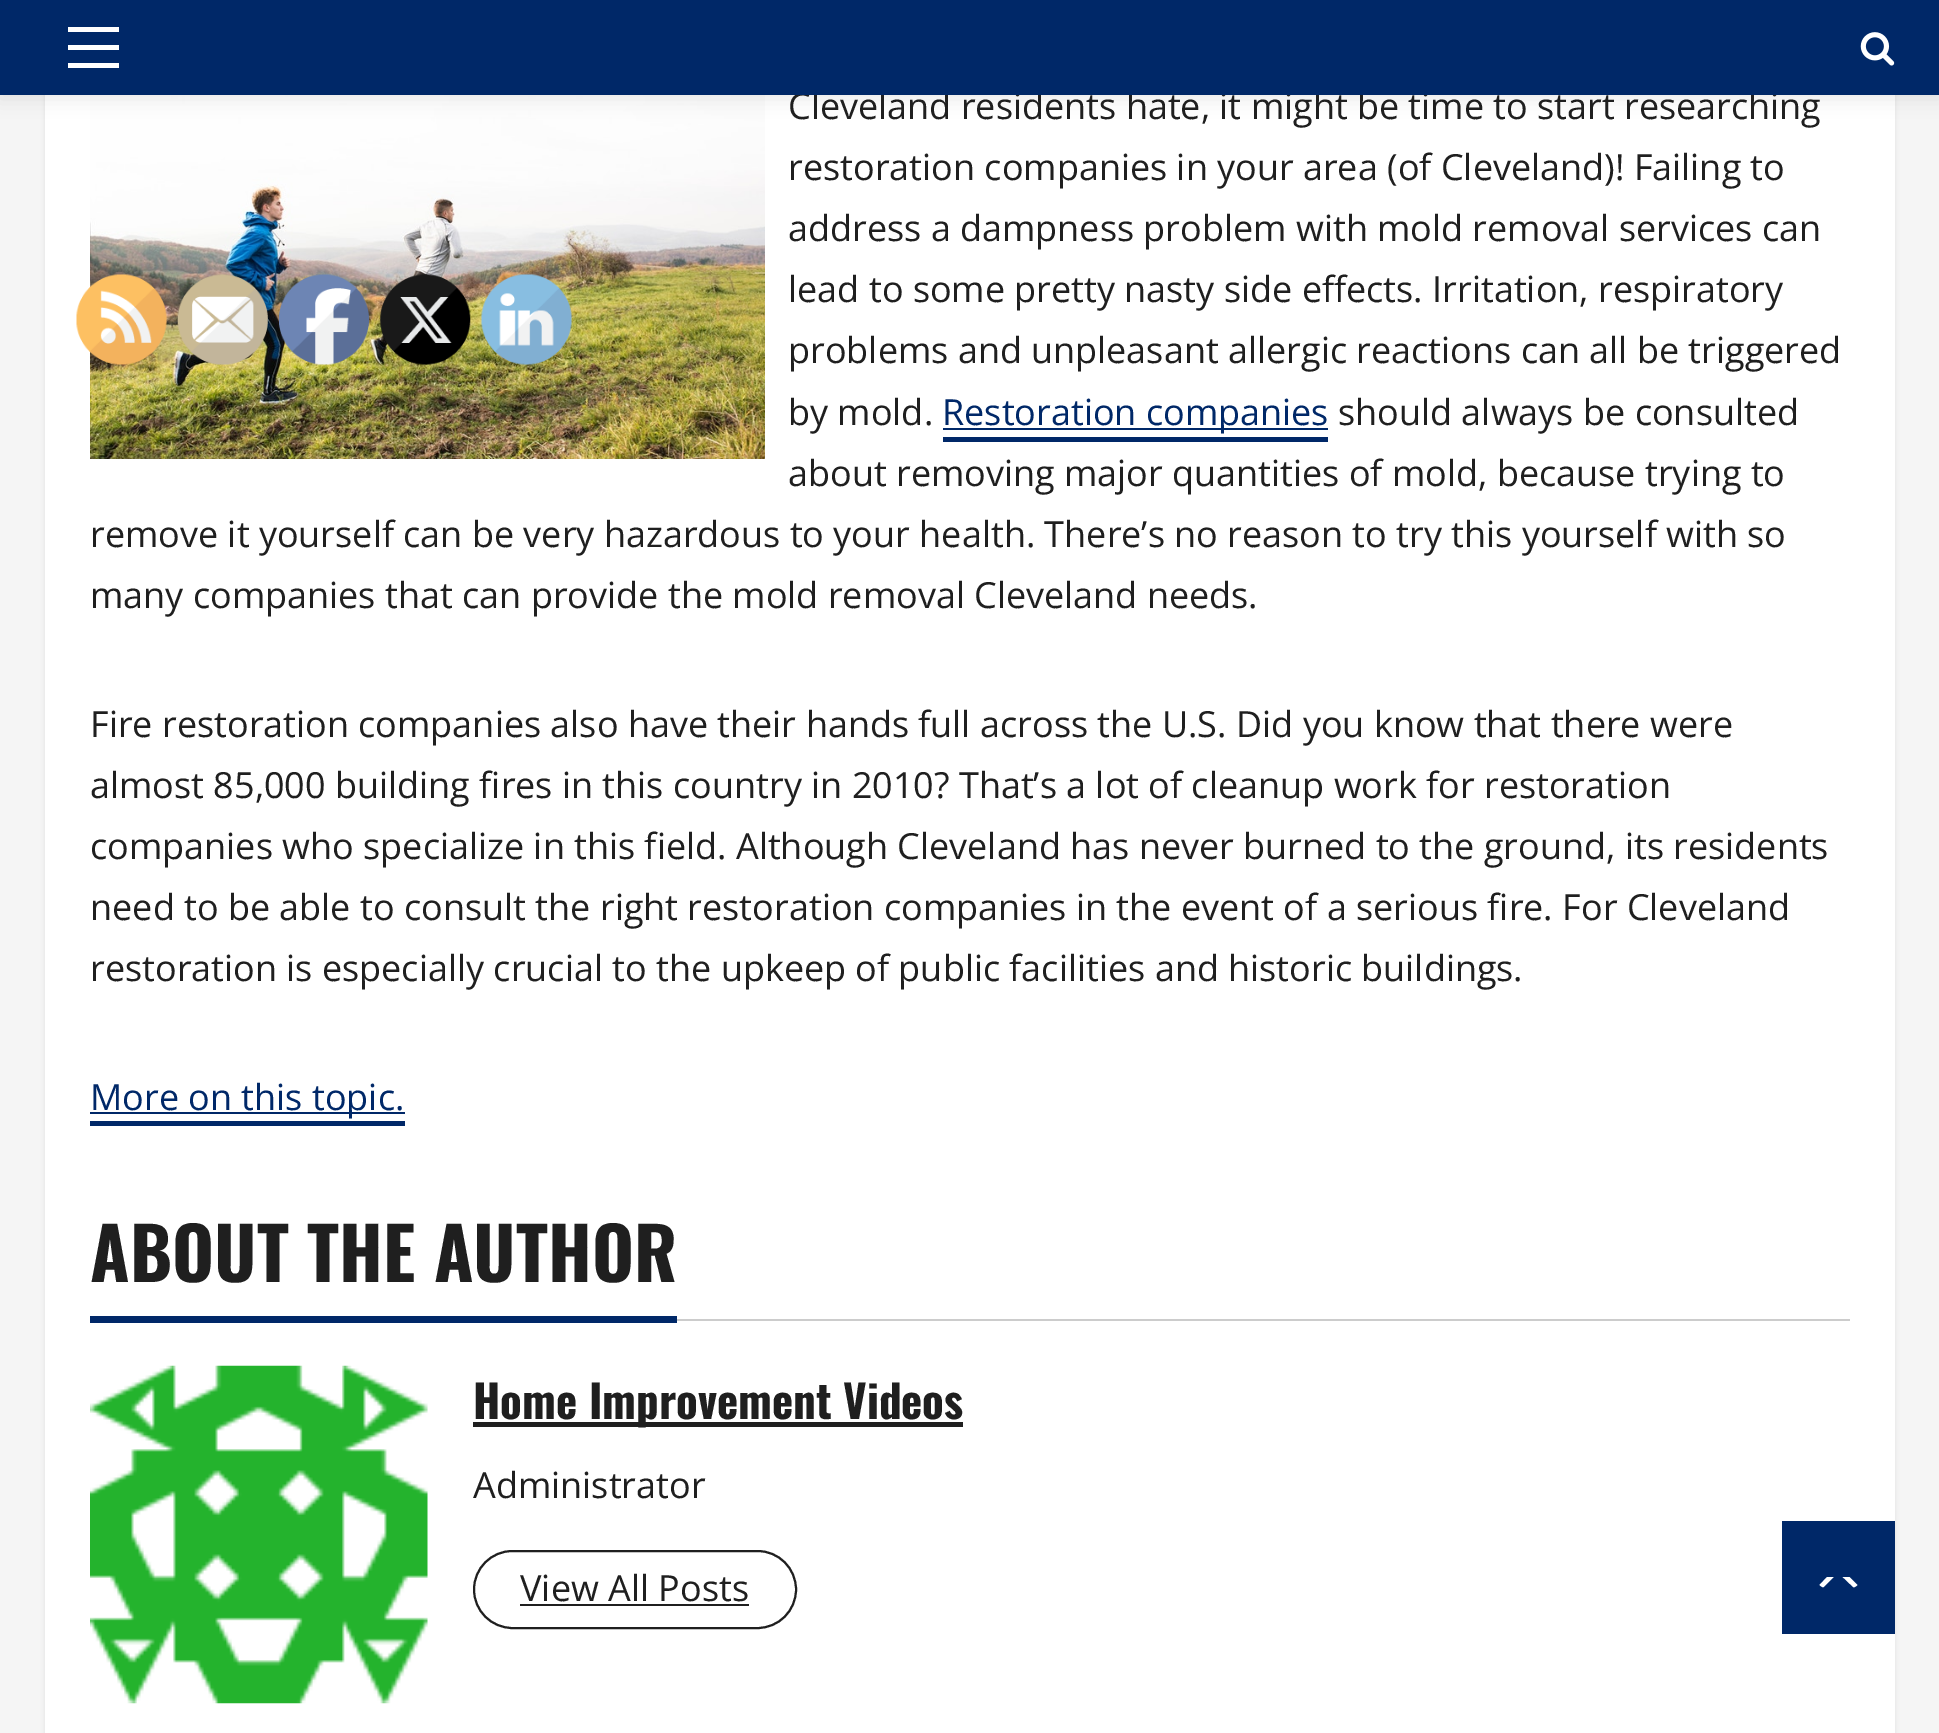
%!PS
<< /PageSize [1939 1733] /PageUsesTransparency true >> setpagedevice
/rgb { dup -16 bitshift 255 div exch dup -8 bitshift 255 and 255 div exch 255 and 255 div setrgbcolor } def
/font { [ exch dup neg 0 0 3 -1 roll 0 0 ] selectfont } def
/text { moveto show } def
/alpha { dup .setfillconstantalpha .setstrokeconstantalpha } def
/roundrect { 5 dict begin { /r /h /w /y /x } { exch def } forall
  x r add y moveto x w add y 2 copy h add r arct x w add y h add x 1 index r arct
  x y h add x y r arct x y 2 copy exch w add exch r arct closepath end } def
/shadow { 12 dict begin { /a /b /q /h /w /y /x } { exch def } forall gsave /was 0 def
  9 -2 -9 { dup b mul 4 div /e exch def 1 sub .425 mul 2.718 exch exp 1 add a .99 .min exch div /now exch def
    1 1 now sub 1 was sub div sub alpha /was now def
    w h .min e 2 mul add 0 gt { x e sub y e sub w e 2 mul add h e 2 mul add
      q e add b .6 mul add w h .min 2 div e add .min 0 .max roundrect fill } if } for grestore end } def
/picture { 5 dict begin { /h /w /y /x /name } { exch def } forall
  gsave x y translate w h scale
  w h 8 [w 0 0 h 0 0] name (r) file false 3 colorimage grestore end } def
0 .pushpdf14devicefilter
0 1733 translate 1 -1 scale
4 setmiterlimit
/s1 { /OpenSans-Regular 36 font 16#1F1F1F rgb } def
/s2 { /OpenSans-Regular 36 font 16#002868 rgb } def
/s3 { /Oswald-Bold 72 font 16#1F1F1F rgb } def
/s4 { /Oswald-Bold 45 font 16#1F1F1F rgb } def
16#F5F5F5 rgb
0 0 1939 1733 rectfill
16#000000 rgb
45 -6 1850 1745 0 2 0.08 shadow
16#FFFFFF rgb
45 95 1850 1638 rectfill
(pic2.raw) 90 95 675 364 picture
16#000000 rgb
0 5 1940 94 0 9 0.08 shadow
s1
(Cleveland residents hate, it might be time to start researching) 788 119 text
16#002868 rgb
0 0 1939 95 rectfill
16#FFFFFF rgb
68 45 51 5 rectfill
68 27 51 5 rectfill
68 63 51 5 rectfill
(pic1.raw) 1860 32 35 34 picture
s1
(restoration companies in your area \(of Cleveland\)! Failing to) 788 180 text
(address a dampness problem with mold removal services can) 788 241 text
(lead to some pretty nasty side effects. Irritation, respiratory) 788 302 text
(problems and unpleasant allergic reactions can all be triggered) 788 363 text
(by mold.) 788 425 text
16#002868 rgb
943 428 385 2 rectfill
(Restoration companies) 942 425 text
943 437 385 5 rectfill
s1
(should always be consulted) 1338 425 text
(about removing major quantities of mold, because trying to) 788 486 text
(remove it yourself can be very hazardous to your health. There’s no reason to try this yourself with so) 90 547 text
(many companies that can provide the mold removal Cleveland needs.) 90 608 text
(Fire restoration companies also have their hands full across the U.S. Did you know that there were) 90 737 text
(almost 85,000 building fires in this country in 2010? That’s a lot of cleanup work for restoration) 90 798 text
(companies who specialize in this field. Although Cleveland has never burned to the ground, its residents) 90 859 text
(need to be able to consult the right restoration companies in the event of a serious fire. For Cleveland) 90 920 text
(restoration is especially crucial to the upkeep of public facilities and historic buildings.) 90 981 text
16#002868 rgb
90 1112 315 2 rectfill
(More on this topic.) 90 1110 text
90 1121 315 5 rectfill
16#CCCCCC rgb
677 1319 1173 2 rectfill
s3
(ABOUT THE AUTHOR) 90 1282 text
16#002868 rgb
90 1316 587 7 rectfill
(pic3.raw) 90 1365 338 339 picture
16#1F1F1F rgb
473 1422 490 5 rectfill
s4
(Home Improvement Videos) 473 1419 text
s1
(Administrator) 473 1498 text
2 setlinewidth
474 1551 322 77 38.5 roundrect stroke
(View All Posts) 520 1601 text
520 1604 229 2 rectfill
(pic4.raw) 76 274 91 91 picture
(pic5.raw) 177 274 91 91 picture
(pic6.raw) 279 274 90 91 picture
(pic7.raw) 380 274 91 91 picture
(pic8.raw) 481 274 91 91 picture
16#002868 rgb
1782 1521 113 113 rectfill
16#FFFFFF rgb
1857.5 1585 moveto 1855.5 1587 1853 1588 1850 1588 curveto 1827 1588 lineto 1824 1588 1821.5 1587 1819.5 1585 curveto 1827 1577 lineto 1849.5 1577 lineto closepath fill
16#002868 rgb
1861 1595 moveto 1816 1595 lineto 1838 1573 lineto closepath fill
.poppdf14devicefilter showpage
